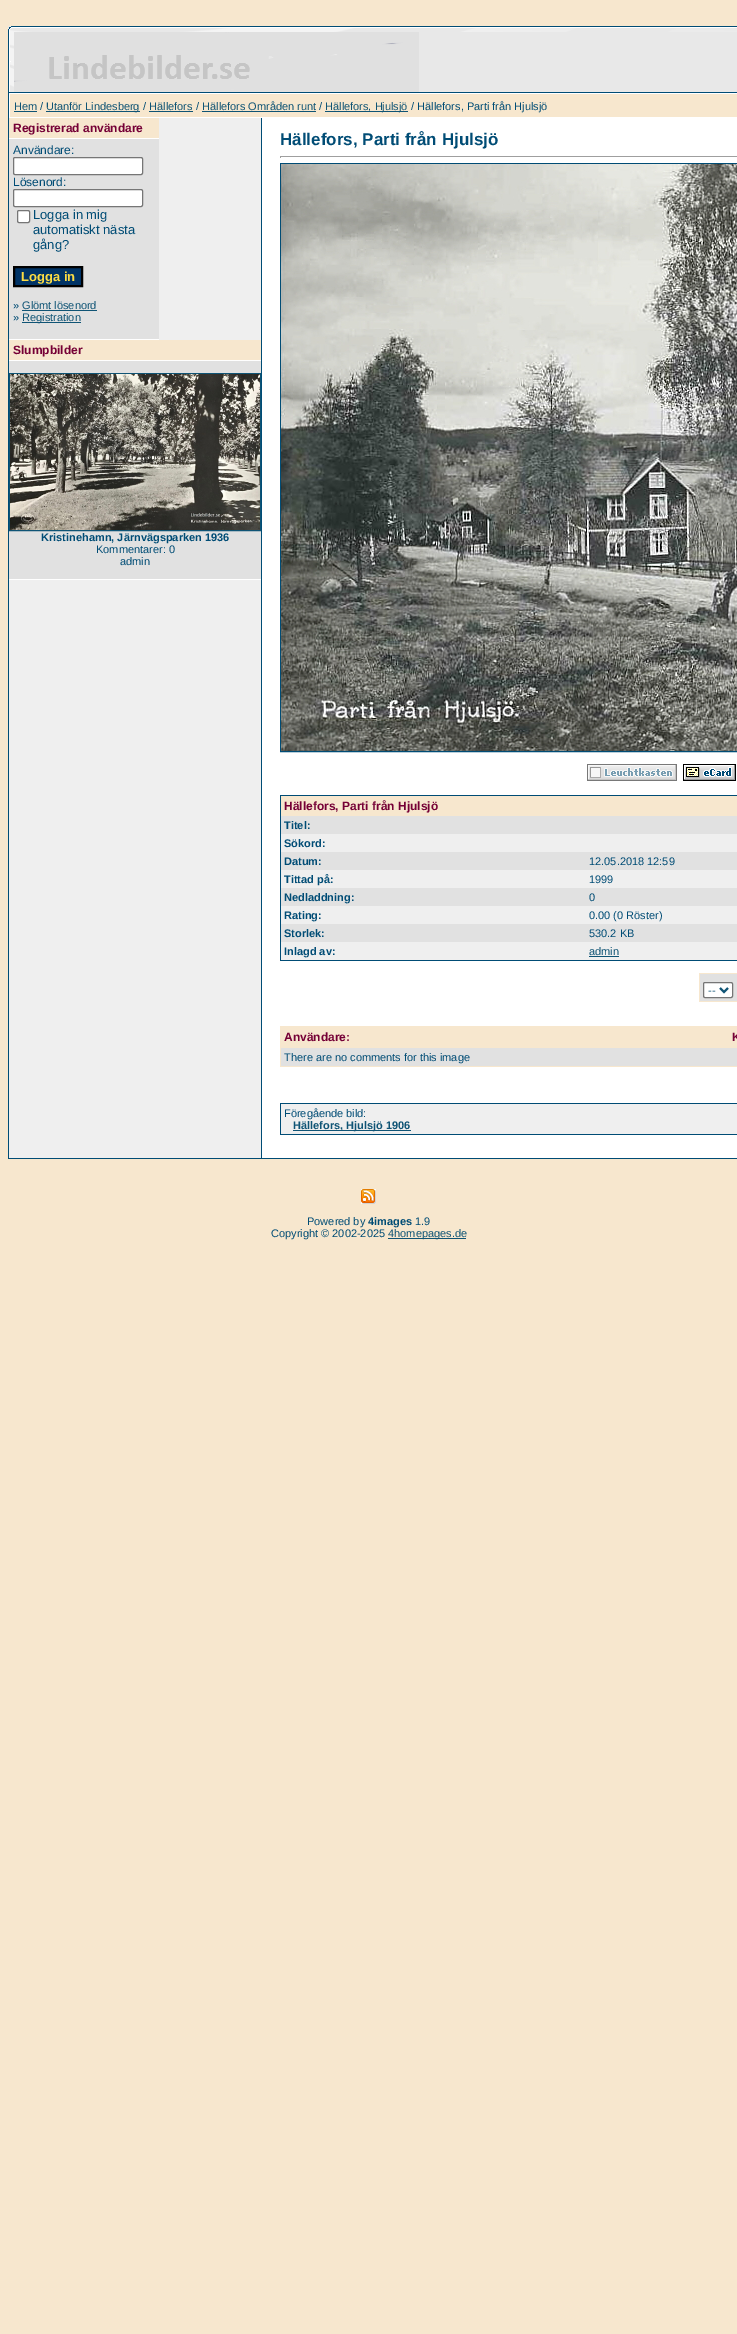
%!PS
<< /PageSize [737 2334] >> setpagedevice
/rgb { dup -16 bitshift 255 div exch dup -8 bitshift 255 and 255 div exch 255 and 255 div setrgbcolor } def
/font { [ exch dup neg 0 0 3 -1 roll 0 0 ] selectfont } def
/text { moveto show } def
/roundrect { 5 dict begin { /r /h /w /y /x } { exch def } forall
  x r add y moveto x w add y 2 copy h add r arct x w add y h add x 1 index r arct
  x y h add x y r arct x y 2 copy exch w add exch r arct closepath end } def
/picture { 5 dict begin { /h /w /y /x /name } { exch def } forall
  gsave x y translate w h scale
  w h 8 [w 0 0 h 0 0] name (r) file false 3 colorimage grestore end } def
0 2334 translate 1 -1 scale
4 setmiterlimit
/s1 { /LiberationSans-Regular 11 font 16#0F5475 rgb } def
/s2 { /LiberationSans-Regular 11 font 16#004C75 rgb } def
/s3 { /LiberationSans-Bold 12 font 16#750036 rgb } def
/s4 { /LiberationSans-Regular 12 font 16#004C75 rgb } def
/s5 { /LiberationSans-Regular 13 font 16#004C75 rgb } def
/s6 { /LiberationSans-Bold 13 font 16#FCDC43 rgb } def
/s7 { /LiberationSans-Bold 11 font 16#004C75 rgb } def
/s8 { /LiberationSans-Bold 17 font 16#004C75 rgb } def
/s9 { /LiberationSans-Bold 11 font 16#0F5475 rgb } def
16#F7E7CE rgb
0 0 737 2334 rectfill
16#E8E8E8 rgb
8 26 729 66 rectfill
(pic1.raw) 8 26 6 6 picture
(pic2.raw) 14 26 723 6 picture
(pic3.raw) 8 32 6 60 picture
(pic4.raw) 14 32 405 60 picture
16#004C75 rgb
8 92 729 1067 rectfill
16#FFFFFF rgb
9 93 728 1065 rectfill
16#F7E7CE rgb
10 94 727 23 rectfill
s1
(Hem) 14 110 text
14 111 23 1 rectfill
s2
(/) 40 110 text
16#0F5475 rgb
46 111 94 1 rectfill
(Utanför Lindesberg) 46 110 text
s2
(/) 143 110 text
s1
(Hällefors) 149 110 text
149 111 44 1 rectfill
s2
(/) 196 110 text
s1
(Hällefors Områden runt) 202 110 text
202 111 114 1 rectfill
s2
(/) 319 110 text
16#0F5475 rgb
325 111 83 1 rectfill
(Hällefors, Hjulsjö) 325 110 text
s2
(/ Hällefors, Parti från Hjulsjö) 411 110 text
16#EFEFEF rgb
9 118 252 1040 rectfill
16#F7E7CE rgb
9 118 150 20 rectfill
s3
(Registrerad användare) 13 132 text
16#FFFFFF rgb
9 138 150 1 rectfill
16#E1E1E1 rgb
9 139 150 200 rectfill
s4
(Användare:) 13 154 text
16#FFFFFF rgb
13.5 157.5 129 17 1.5 roundrect gsave fill grestore
16#767676 rgb
stroke
s4
(Lösenord:) 13 186 text
16#FFFFFF rgb
13.5 189.5 129 17 1.5 roundrect gsave fill grestore
16#767676 rgb
stroke
16#FFFFFF rgb
17.5 210.5 12 12 1.5 roundrect gsave fill grestore
16#767676 rgb
stroke
s5
(Logga in mig) 33 219 text
(automatiskt nästa) 33 234 text
(gång?) 33 249 text
16#003366 rgb
14 267 moveto 82 267 lineto 82 286 lineto 14 286 lineto closepath gsave fill grestore
16#000000 rgb
2 setlinewidth
stroke
s6
(Logga in) 21 281 text
s2
(») 13 309 text
s1
(Glömt lösenord) 22 309 text
22 310 75 1 rectfill
s2
(») 13 321 text
16#0F5475 rgb
22 322 59 1 rectfill
(Registration) 22 321 text
16#FFFFFF rgb
9 339 150 1 rectfill
16#F7E7CE rgb
9 340 252 20 rectfill
s3
(Slumpbilder) 13 354 text
16#FFFFFF rgb
9 360 252 1 rectfill
16#E1E1E1 rgb
9 361 252 218 rectfill
16#0F5475 rgb
1 setlinewidth
9.5 373.5 251 157 rectstroke
(pic5.raw) 10 374 250 156 picture
s7
(Kristinehamn, Järnvägsparken 1936) 41 541 text
s2
(Kommentarer: 0) 96 553 text
(admin) 120 565 text
16#FFFFFF rgb
9 579 252 1 rectfill
16#004C75 rgb
261 118 1 1040 rectfill
s8
(Hällefors, Parti från Hjulsjö) 280 145 text
16#9F9F9F rgb
280 156 457 1 rectfill
280 156 1 2 rectfill
16#004C75 rgb
280.5 163.5 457 588 rectstroke
(pic6.raw) 281 164 456 587 picture
(pic7.raw) 587 764 90 17 picture
(pic8.raw) 683 764 53 17 picture
280 795 457 166 rectfill
16#F7E7CE rgb
281 796 456 20 rectfill
s3
(Hällefors, Parti från Hjulsjö) 284 810 text
16#E1E1E1 rgb
281 816 456 18 rectfill
s7
(Titel:) 284 829 text
16#EFEFEF rgb
281 834 456 18 rectfill
s7
(Sökord:) 284 847 text
16#E1E1E1 rgb
281 852 456 18 rectfill
s7
(Datum:) 284 865 text
s2
(12.05.2018 12:59) 589 865 text
16#EFEFEF rgb
281 870 456 18 rectfill
s7
(Tittad på:) 284 883 text
s2
(1999) 589 883 text
16#E1E1E1 rgb
281 888 456 18 rectfill
s7
(Nedladdning:) 284 901 text
s2
(0) 589 901 text
16#EFEFEF rgb
281 906 456 18 rectfill
s7
(Rating:) 284 919 text
s2
(0.00 \(0 Röster\)) 589 919 text
16#E1E1E1 rgb
281 924 456 18 rectfill
s7
(Storlek:) 284 937 text
s2
(530.2 KB) 589 937 text
16#EFEFEF rgb
281 942 456 18 rectfill
s7
(Inlagd av:) 284 955 text
s1
(admin) 589 955 text
589 956 30 1 rectfill
16#F7E7CE rgb
699 973 38 29 rectfill
16#E1E1E1 rgb
700 974 37 27 rectfill
16#FFFFFF rgb
703.5 982.5 29 15 1.5 roundrect gsave fill grestore
16#767676 rgb
stroke
16#0F5475 rgb
2 setlinewidth
720 988 moveto 724 992 lineto 728 988 lineto stroke
(--) 708 994 text
16#F7E7CE rgb
280 1026 457 41 rectfill
s3
(Användare:) 284 1041 text
(K) 732 1041 text
16#E1E1E1 rgb
281 1048 456 18 rectfill
s2
(There are no comments for this image) 284 1061 text
280 1103 457 32 rectfill
16#EFEFEF rgb
281 1104 456 30 rectfill
s2
(Föregående bild:) 284 1117 text
16#0F5475 rgb
293 1130 118 1 rectfill
s9
(Hällefors, Hjulsjö 1906) 293 1129 text
(pic9.raw) 361 1189 15 15 picture
s2
(Powered by) 307 1225 text
s7
(4images) 368 1225 text
s2
(1.9) 415 1225 text
(Copyright © 2002-2025) 271 1237 text
16#0F5475 rgb
388 1238 78 1 rectfill
(4homepages.de) 388 1237 text
showpage
